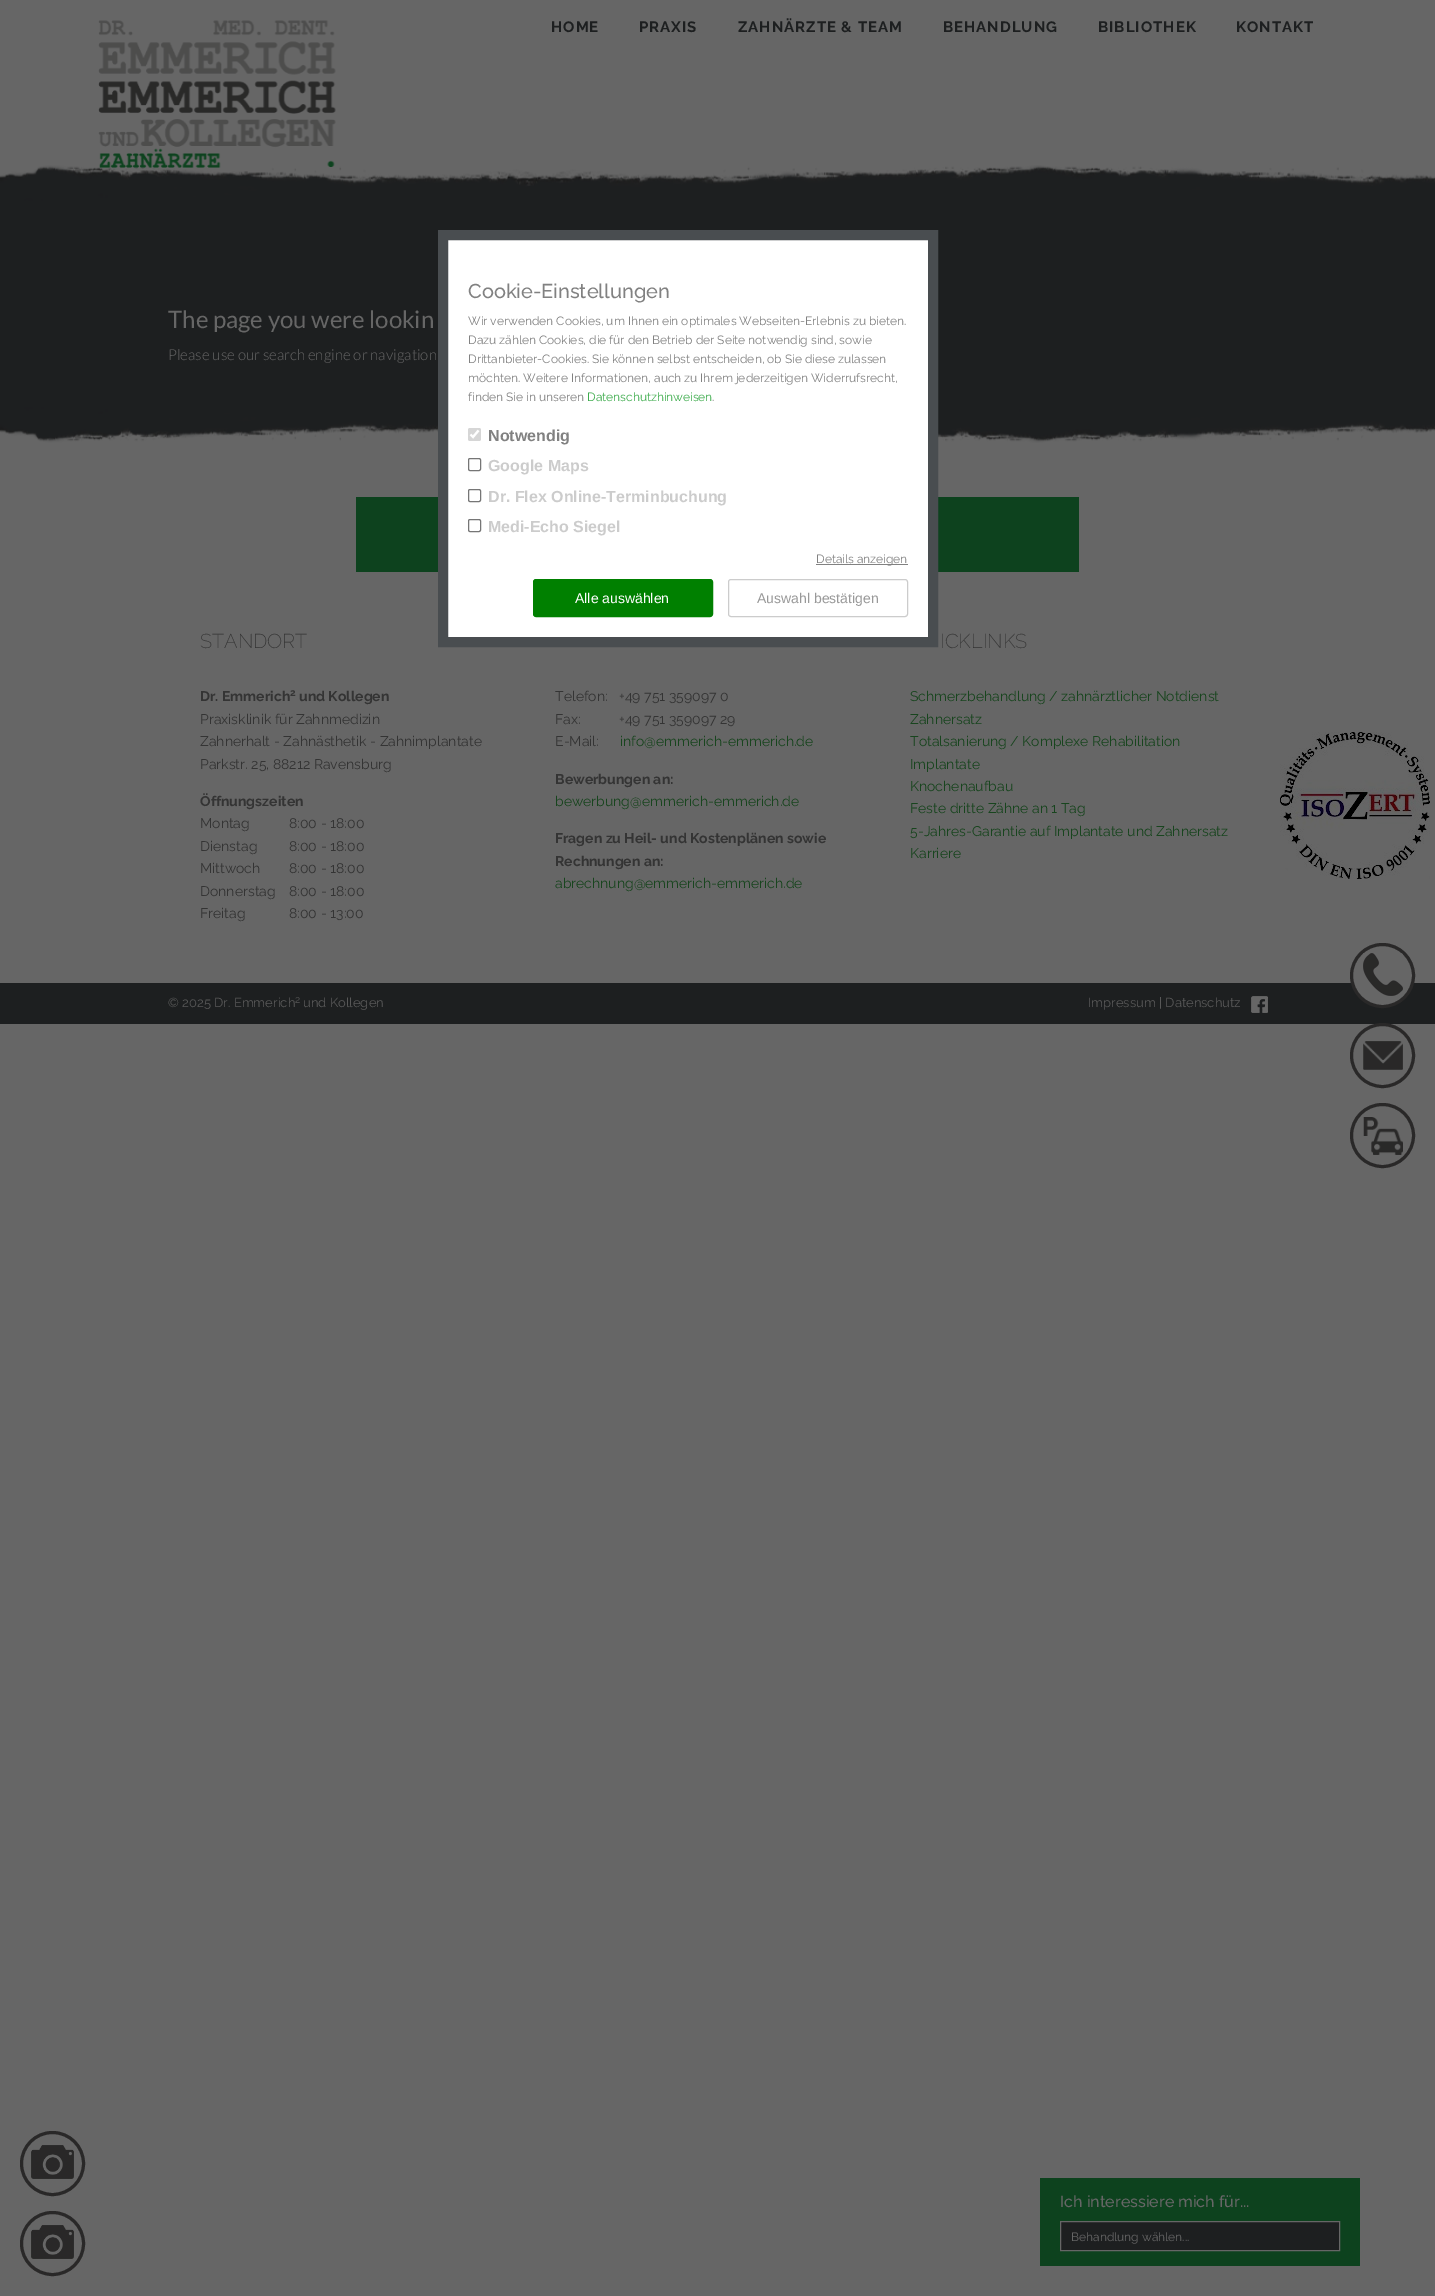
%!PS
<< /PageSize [1435 2296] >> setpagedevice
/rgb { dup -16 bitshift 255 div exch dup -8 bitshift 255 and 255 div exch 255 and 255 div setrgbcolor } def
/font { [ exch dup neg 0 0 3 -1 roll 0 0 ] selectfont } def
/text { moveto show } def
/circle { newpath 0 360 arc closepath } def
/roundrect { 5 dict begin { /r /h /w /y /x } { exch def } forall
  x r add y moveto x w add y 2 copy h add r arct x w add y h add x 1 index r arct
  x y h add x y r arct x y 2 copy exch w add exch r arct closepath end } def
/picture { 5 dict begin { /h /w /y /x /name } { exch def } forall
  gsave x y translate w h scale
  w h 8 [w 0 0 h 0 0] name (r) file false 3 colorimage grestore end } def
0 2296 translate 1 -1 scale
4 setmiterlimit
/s1 { /Lato-Regular 24 font 16#666666 rgb } def
/s2 { /Lato-Light 15 font 16#666666 rgb } def
/s3 { /Raleway-Medium 20 font 16#818181 rgb } def
/s4 { /Raleway-Regular 12 font 16#818181 rgb } def
/s5 { /Raleway-Regular 12 font 16#3DAC4C rgb } def
/s6 { /LiberationSans-Bold 16 font 16#818181 rgb } def
/s7 { /LiberationSans-Bold 16 font 16#CCCCCC rgb } def
/s8 { /LiberationSans-Regular 14 font 16#FFFFFF rgb } def
/s9 { /LiberationSans-Regular 14 font 16#999999 rgb } def
/s10 { /Raleway-ExtraLight 20 font 16#343434 rgb } def
/s11 { /Raleway-Bold 14 font 16#343434 rgb } def
/s12 { /Raleway-Bold 10 font 16#343434 rgb } def
/s13 { /Raleway-Regular 14 font 16#343434 rgb } def
/s14 { /Raleway-Regular 14 font 16#18451E rgb } def
/s15 { /Raleway-Regular 13 font 16#585858 rgb } def
/s16 { /Raleway-Regular 10 font 16#585858 rgb } def
/s17 { /Raleway-Medium 16 font 16#666666 rgb } def
/s18 { /Raleway-Regular 12 font 16#666666 rgb } def
16#666666 rgb
0 0 1435 2296 rectfill
(pic2.raw) 0 165 1435 41 picture
(pic1.raw) 98 20 238 148 picture
/Raleway-Bold 15 font
16#1D1F20 rgb
551 32 moveto 1 0 (HOME) ashow
639 32 moveto 1 0 (PRAXIS) ashow
738 32 moveto 1 0 (ZAHNÄRZTE & TEAM) ashow
943 32 moveto 1 0 (BEHANDLUNG) ashow
1098 32 moveto 1 0 (BIBLIOTHEK) ashow
1236 32 moveto 1 0 (KONTAKT) ashow
0 206 1435 195 rectfill
s1
(The page you were lookin) 168 328 text
s2
(Please use our search engine or navigation) 168 360 text
(pic3.raw) 0 401 1435 42 picture
16#0D421E rgb
356 497 723 75 rectfill
16#FFFFFF rgb
443 235 moveto 933 235 lineto 933 642 lineto 443 642 lineto closepath gsave fill grestore
16#494D50 rgb
10 setlinewidth
stroke
s3
(Cookie-Einstellungen) 468 298 text
s4
(Wir verwenden Cookies, um Ihnen ein optimales Webseiten-Erlebnis zu bieten.) 468 325 text
(Dazu zählen Cookies, die für den Betrieb der Seite notwendig sind, sowie) 468 344 text
(Drittanbieter-Cookies. Sie können selbst entscheiden, ob Sie diese zulassen) 468 363 text
(möchten. Weitere Informationen, auch zu Ihrem jederzeitigen Widerrufsrecht,) 468 382 text
(finden Sie in unseren) 468 401 text
s5
(Datenschutzhinweisen) 587 401 text
s4
(.) 712 401 text
16#D6D6D6 rgb
468 428 13 13 2 roundrect fill
16#FFFFFF rgb
2.1 setlinewidth
470.5 434.5 moveto 473 437 lineto 478.5 430.5 lineto stroke
s6
(Notwendig) 488 441 text
16#767676 rgb
1 setlinewidth
468.5 458.5 12 12 1.5 roundrect stroke
s7
(Google Maps) 488 471 text
16#767676 rgb
468.5 489.5 12 12 1.5 roundrect stroke
s7
(Dr. Flex Online-Terminbuchung) 488 502 text
16#767676 rgb
468.5 519.5 12 12 1.5 roundrect stroke
s7
(Medi-Echo Siegel) 488 532 text
16#818181 rgb
816 564 92 1 rectfill
s4
(Details anzeigen) 816 563 text
16#008000 rgb
533.5 579.5 179 37 2.5 roundrect gsave fill grestore
stroke
s8
(Alle auswählen) 575 603 text
16#CCCCCC rgb
728.5 579.5 179 37 2.5 roundrect stroke
s9
(Auswahl bestätigen) 757 603 text
s10
(STANDORT) 200 648 text
s11
(Dr. Emmerich) 200 701 text
s12
(2) 290 696 text
s11
(und Kollegen) 299 701 text
s13
(Praxisklinik für Zahnmedizin) 200 724 text
(Zahnerhalt - Zahnästhetik - Zahnimplantate) 200 746 text
(Parkstr. 25, 88212 Ravensburg) 200 769 text
s11
(Öffnungszeiten) 200 806 text
s13
(Montag) 200 828 text
(8:00 - 18:00) 289 828 text
(Dienstag) 200 851 text
(8:00 - 18:00) 289 851 text
(Mittwoch) 200 873 text
(8:00 - 18:00) 289 873 text
(Donnerstag) 200 896 text
(8:00 - 18:00) 289 896 text
(Freitag) 200 918 text
(8:00 - 13:00) 289 918 text
(Telefon:) 555 701 text
(+49 751 359097 0) 619 701 text
(Fax:) 555 724 text
(+49 751 359097 29) 619 724 text
(E-Mail:) 555 746 text
s14
(info@emmerich-emmerich.de) 620 746 text
s11
(Bewerbungen an:) 555 784 text
s14
(bewerbung@emmerich-emmerich.de) 555 806 text
s11
(Fragen zu Heil- und Kostenplänen sowie) 555 843 text
(Rechnungen an:) 555 866 text
s14
(abrechnung@emmerich-emmerich.de) 555 888 text
s10
(ICKLINKS) 940 648 text
s14
(Schmerzbehandlung / zahnärztlicher Notdienst) 910 701 text
(Zahnersatz) 910 724 text
(Totalsanierung / Komplexe Rehabilitation) 910 746 text
(Implantate) 910 769 text
(Knochenaufbau) 910 791 text
(Feste dritte Zähne an 1 Tag) 910 813 text
(5-Jahres-Garantie auf Implantate und Zahnersatz) 910 836 text
(Karriere) 910 858 text
(pic4.raw) 1280 732 150 147 picture
16#1D1F20 rgb
0 983 1435 41 rectfill
16#666666 rgb
1382.5 975.5 31 circle gsave fill grestore
16#292828 rgb
3 setlinewidth
stroke
(pic5.raw) 1363 953 40 43 picture
16#666666 rgb
1382.5 1055.5 31 circle gsave fill grestore
16#292828 rgb
stroke
(pic6.raw) 1363 1041 40 29 picture
1382.5 1135.5 31 circle stroke
(pic7.raw) 1363 1117 40 38 picture
52.5 2163.5 31 circle stroke
(pic8.raw) 31 2145 43 34 picture
52.5 2243.5 31 circle stroke
(pic8.raw) 31 2225 43 34 picture
s15
(© 2025 Dr. Emmerich) 168 1007 text
s16
(2) 295 1003 text
s15
(und Kollegen) 303 1007 text
(Impressum | Datenschutz) 1088 1007 text
(pic9.raw) 1251 996 17 17 picture
16#0D421E rgb
1040 2178 320 88 rectfill
s17
(Ich interessiere mich für...) 1060 2207 text
16#1D1F20 rgb
1060.5 2221.5 moveto 1339.5 2221.5 lineto 1339.5 2250.5 lineto 1060.5 2250.5 lineto closepath gsave fill grestore
16#666666 rgb
1 setlinewidth
stroke
s18
(Behandlung wählen...) 1071 2241 text
showpage
